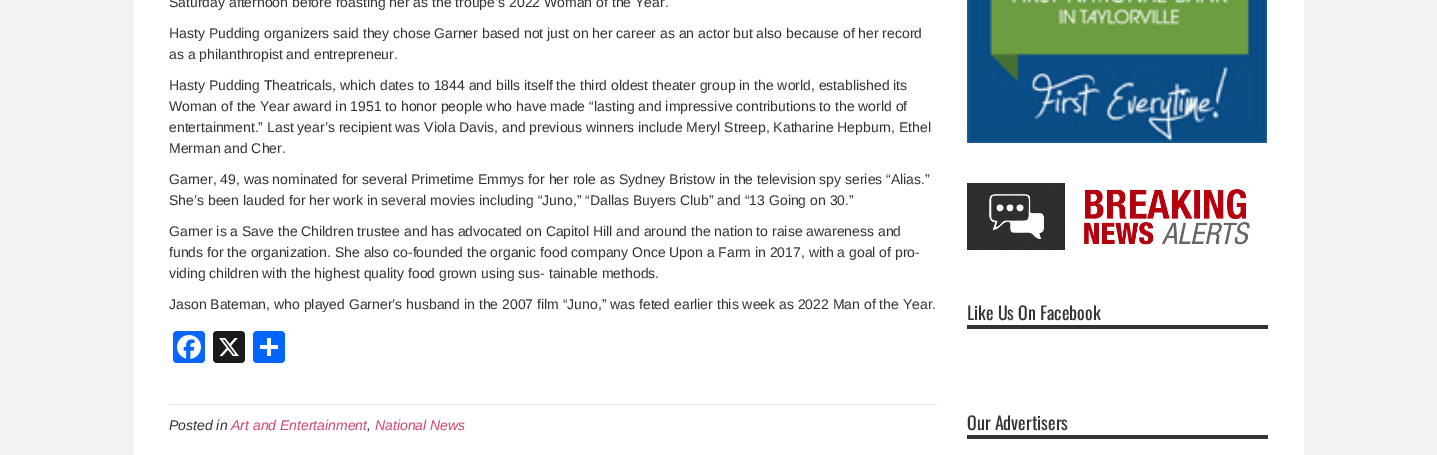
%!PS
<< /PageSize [1437 455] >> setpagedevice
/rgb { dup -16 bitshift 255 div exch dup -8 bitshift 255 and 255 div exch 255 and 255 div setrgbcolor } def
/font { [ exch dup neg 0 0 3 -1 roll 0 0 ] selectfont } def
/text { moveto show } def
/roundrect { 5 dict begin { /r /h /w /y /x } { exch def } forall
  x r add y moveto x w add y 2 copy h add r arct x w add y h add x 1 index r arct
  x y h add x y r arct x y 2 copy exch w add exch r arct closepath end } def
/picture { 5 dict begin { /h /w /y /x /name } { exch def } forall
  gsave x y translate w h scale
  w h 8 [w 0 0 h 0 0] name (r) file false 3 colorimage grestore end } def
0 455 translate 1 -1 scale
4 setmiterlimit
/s1 { /LiberationSans-Regular 14 font 16#333333 rgb } def
/s2 { /LiberationSans-Italic 14 font 16#333333 rgb } def
/s3 { /LiberationSans-Italic 14 font 16#D0456E rgb } def
/s4 { /Oswald-Regular 18 font 16#333333 rgb } def
16#F2F2F2 rgb
0 0 1437 455 rectfill
16#FFFFFF rgb
134 0 1170 455 rectfill
s1
(Saturday afternoon before roasting her as the troupe’s 2022 Woman of the Year.) 169 7 text
(Hasty Pudding organizers said they chose Garner based not just on her career as an actor but also because of her record) 169 38 text
(as a philanthropist and entrepreneur.) 169 59 text
(Hasty Pudding Theatricals, which dates to 1844 and bills itself the third oldest theater group in the world, established its) 169 90 text
(Woman of the Year award in 1951 to honor people who have made “lasting and impressive contributions to the world of) 169 111 text
(entertainment.” Last year’s recipient was Viola Davis, and previous winners include Meryl Streep, Katharine Hepburn, Ethel) 169 132 text
(Merman and Cher.) 169 153 text
(Garner, 49, was nominated for several Primetime Emmys for her role as Sydney Bristow in the television spy series “Alias.”) 169 184 text
(She’s been lauded for her work in several movies including “Juno,” “Dallas Buyers Club” and “13 Going on 30.”) 169 205 text
(Garner is a Save the Children trustee and has advocated on Capitol Hill and around the nation to raise awareness and) 169 236 text
(funds for the organization. She also co-founded the organic food company Once Upon a Farm in 2017, with a goal of pro-) 169 257 text
(viding children with the highest quality food grown using sus- tainable methods.) 169 278 text
(Jason Bateman, who played Garner’s husband in the 2007 film “Juno,” was feted earlier this week as 2022 Man of the Year.) 169 309 text
16#0866FF rgb
173 331 32 32 4 roundrect fill
(pic1.raw) 177 335 24 24 picture
16#1A1A1A rgb
213 331 32 32 4 roundrect fill
(pic2.raw) 219 338 20 19 picture
16#0166FF rgb
253 331 32 32 4 roundrect fill
16#FFFFFF rgb
267 338 4 18 rectfill
260 345 18 4 rectfill
16#E6E6E6 rgb
169 404 768 1 rectfill
s2
(Posted in) 169 430 text
s3
(Art and Entertainment) 231 430 text
s2
(,) 367 430 text
s3
(National News) 375 430 text
(pic3.raw) 967 0 300 143 picture
(pic4.raw) 967 183 283 67 picture
16#333333 rgb
967 325 301 4 rectfill
s4
(Like Us On Facebook) 967 320 text
967 435 301 4 rectfill
(Our Advertisers) 967 430 text
showpage
